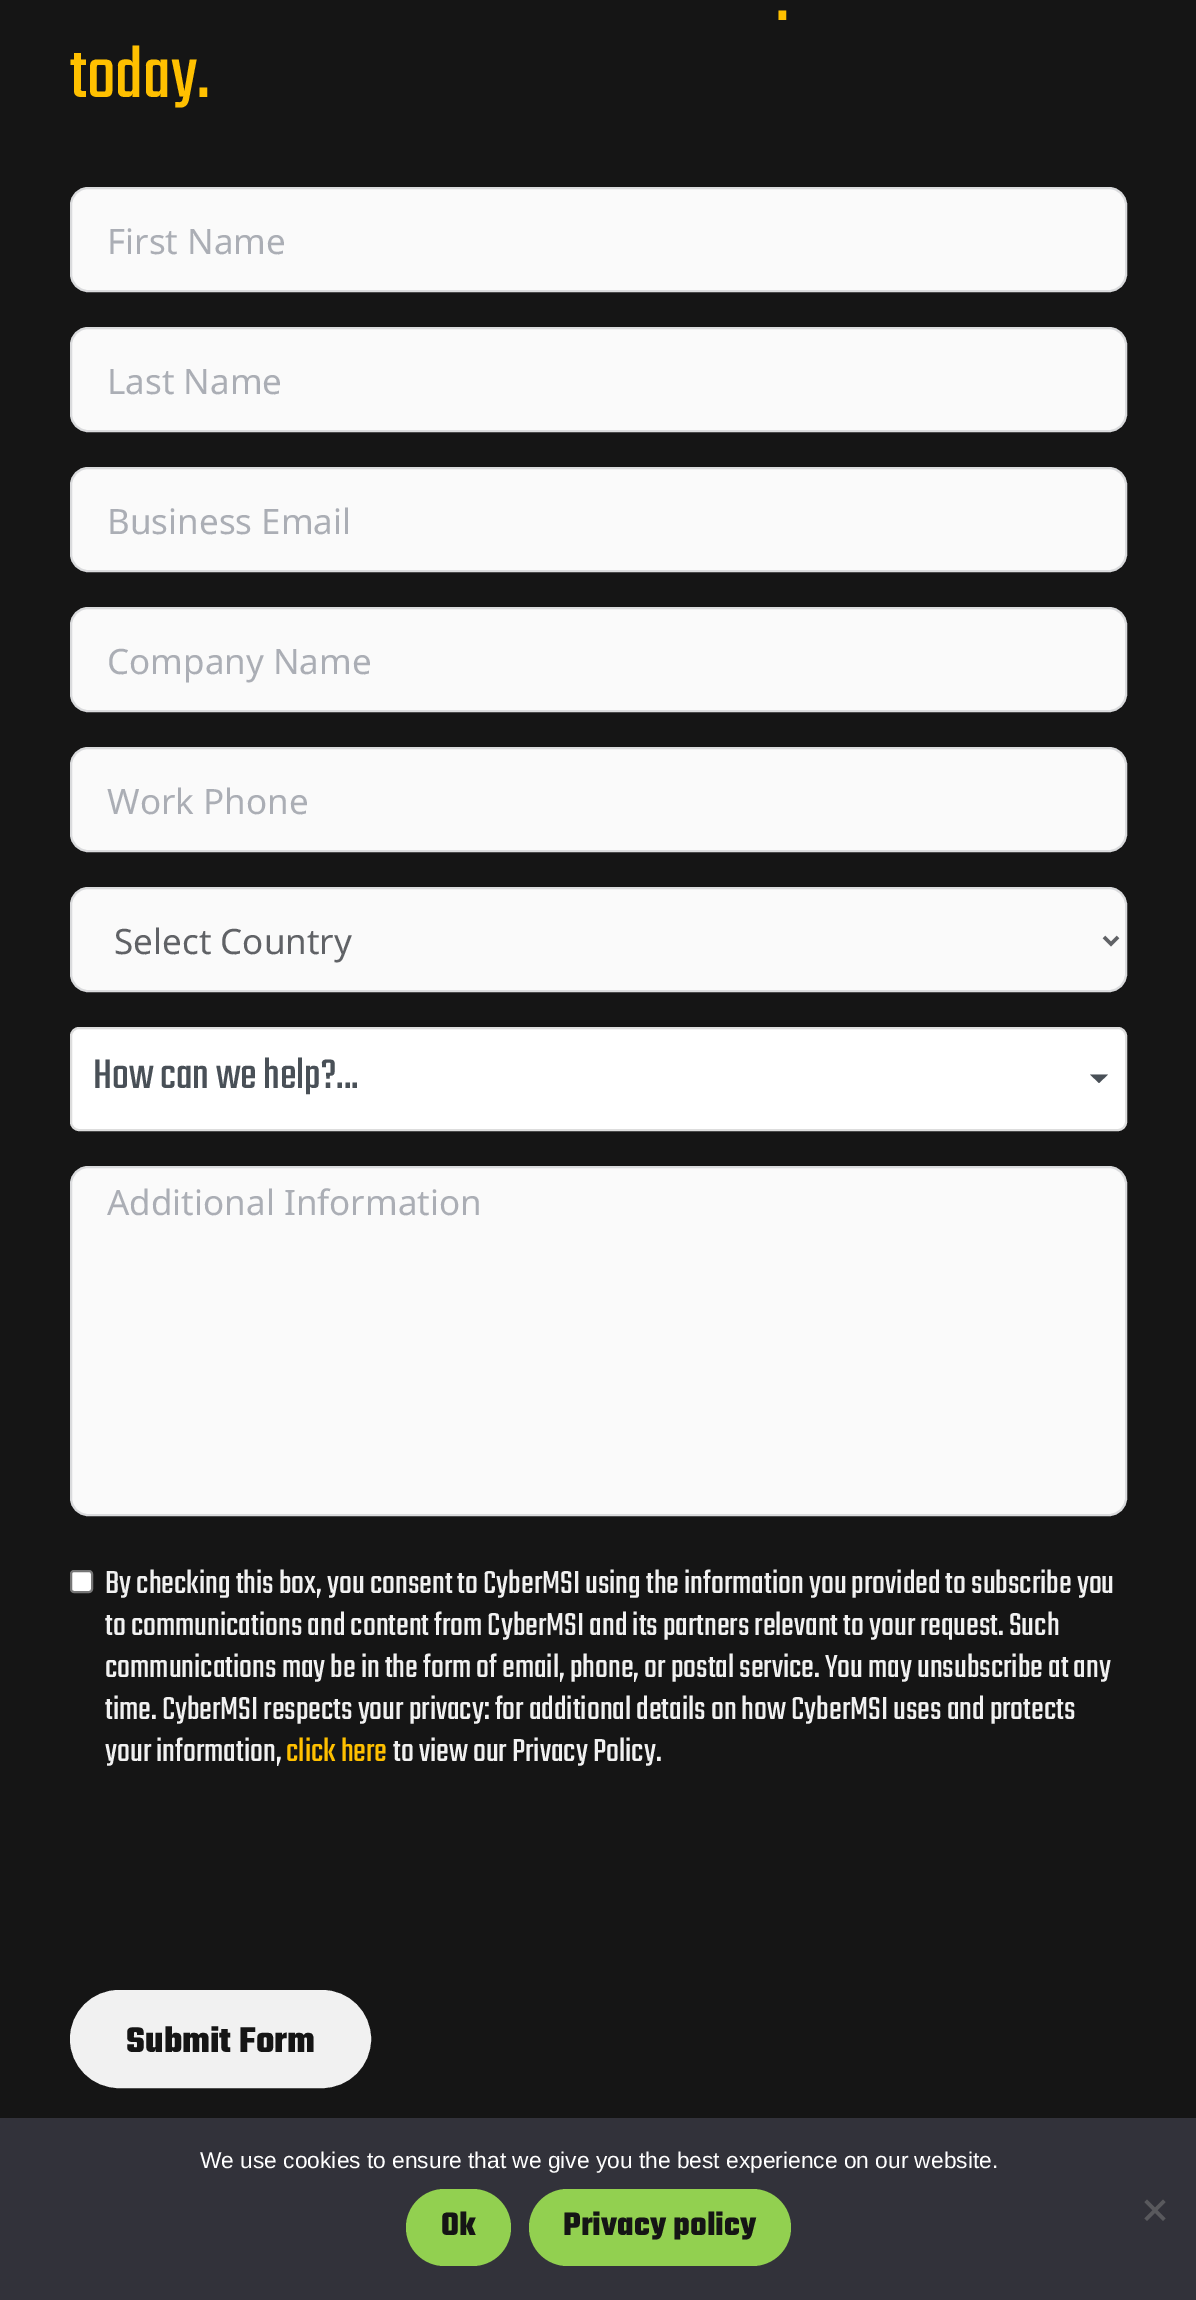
%!PS
<< /PageSize [1196 2300] >> setpagedevice
/rgb { dup -16 bitshift 255 div exch dup -8 bitshift 255 and 255 div exch 255 and 255 div setrgbcolor } def
/font { [ exch dup neg 0 0 3 -1 roll 0 0 ] selectfont } def
/text { moveto show } def
/roundrect { 5 dict begin { /r /h /w /y /x } { exch def } forall
  x r add y moveto x w add y 2 copy h add r arct x w add y h add x 1 index r arct
  x y h add x y r arct x y 2 copy exch w add exch r arct closepath end } def
0 2300 translate 1 -1 scale
4 setmiterlimit
/s1 { /Teko-Light 77 font 16#FFC000 rgb } def
/s2 { /NotoSans-Regular 35 font 16#ABAEB5 rgb } def
/s3 { /NotoSans-Regular 35 font 16#606266 rgb } def
/s4 { /Teko-Light 45.5 font 16#495057 rgb } def
/s5 { /Teko-Light 35 font 16#F1F1F1 rgb } def
/s6 { /Teko-Light 35 font 16#FFC000 rgb } def
/s7 { /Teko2-Light 38.5 font 16#151515 rgb } def
/s8 { /LiberationSans-Regular 22.75 font 16#FFFFFF rgb } def
/s9 { /Teko2-Light 35 font 16#151515 rgb } def
16#151515 rgb
0 0 1196 2300 rectfill
s1
(.) 776 20 text
(today.) 70 97 text
16#FAFAFA rgb
71 188 1055 103 17 roundrect gsave fill grestore
16#DADBDD rgb
2 setlinewidth
stroke
s2
(First Name) 107 254 text
16#FAFAFA rgb
71 328 1055 103 17 roundrect gsave fill grestore
16#DADBDD rgb
stroke
s2
(Last Name) 107 394 text
16#FAFAFA rgb
71 468 1055 103 17 roundrect gsave fill grestore
16#DADBDD rgb
stroke
s2
(Business Email) 107 534 text
16#FAFAFA rgb
71 608 1055 103 17 roundrect gsave fill grestore
16#DADBDD rgb
stroke
s2
(Company Name) 107 674 text
16#FAFAFA rgb
71 748 1055 103 17 roundrect gsave fill grestore
16#DADBDD rgb
stroke
s2
(Work Phone) 107 814 text
16#FAFAFA rgb
71 888 1055 103 17 roundrect gsave fill grestore
16#DADBDD rgb
stroke
16#606266 rgb
3.5 setlinewidth
1104 937 moveto 1111 944 lineto 1118 937 lineto stroke
(Select Country) 114 954 text
16#FFFFFF rgb
71 1028 1055 102 8 roundrect gsave fill grestore
16#DDDDDD rgb
2 setlinewidth
stroke
s4
(How can we help?...) 93 1088 text
1090 1074.5 moveto 1108 1074.5 lineto 1099 1083 lineto closepath fill
16#FAFAFA rgb
71 1167 1055 348 17 roundrect gsave fill grestore
16#DADBDD rgb
stroke
s2
(Additional Information) 107 1215 text
16#FFFFFF rgb
71 1571 21 21 3 roundrect gsave fill grestore
16#767676 rgb
stroke
s5
(By checking this box, you consent to CyberMSI using the information you provided to subscribe you) 105 1593 text
(to communications and content from CyberMSI and its partners relevant to your request. Such) 105 1635 text
(communications may be in the form of email, phone, or postal service. You may unsubscribe at any) 105 1677 text
(time. CyberMSI respects your privacy: for additional details on how CyberMSI uses and protects) 105 1719 text
(your information,) 105 1761 text
s6
(click here) 286 1761 text
s5
(to view our Privacy Policy.) 393 1761 text
72 1992 297 94 47 roundrect gsave fill grestore
4 setlinewidth
stroke
s7
(Submit Form) 126 2052 text
16#32323A rgb
0 2118 1196 182 rectfill
s8
(We use cookies to ensure that we give you the best experience on our website.) 200 2168 text
16#92D050 rgb
406 2189 105 77 38.5 roundrect fill
s9
(Ok) 441 2235 text
16#92D050 rgb
529 2189 262 77 38.5 roundrect fill
s9
(Privacy policy) 563 2235 text
16#59595D rgb
1163 2199.5 moveto 1165.5 2202 lineto 1147 2221 lineto 1144.5 2218.5 lineto closepath fill
1144.5 2202 moveto 1147 2199.5 lineto 1165.5 2218.5 lineto 1163 2221 lineto closepath fill
showpage
